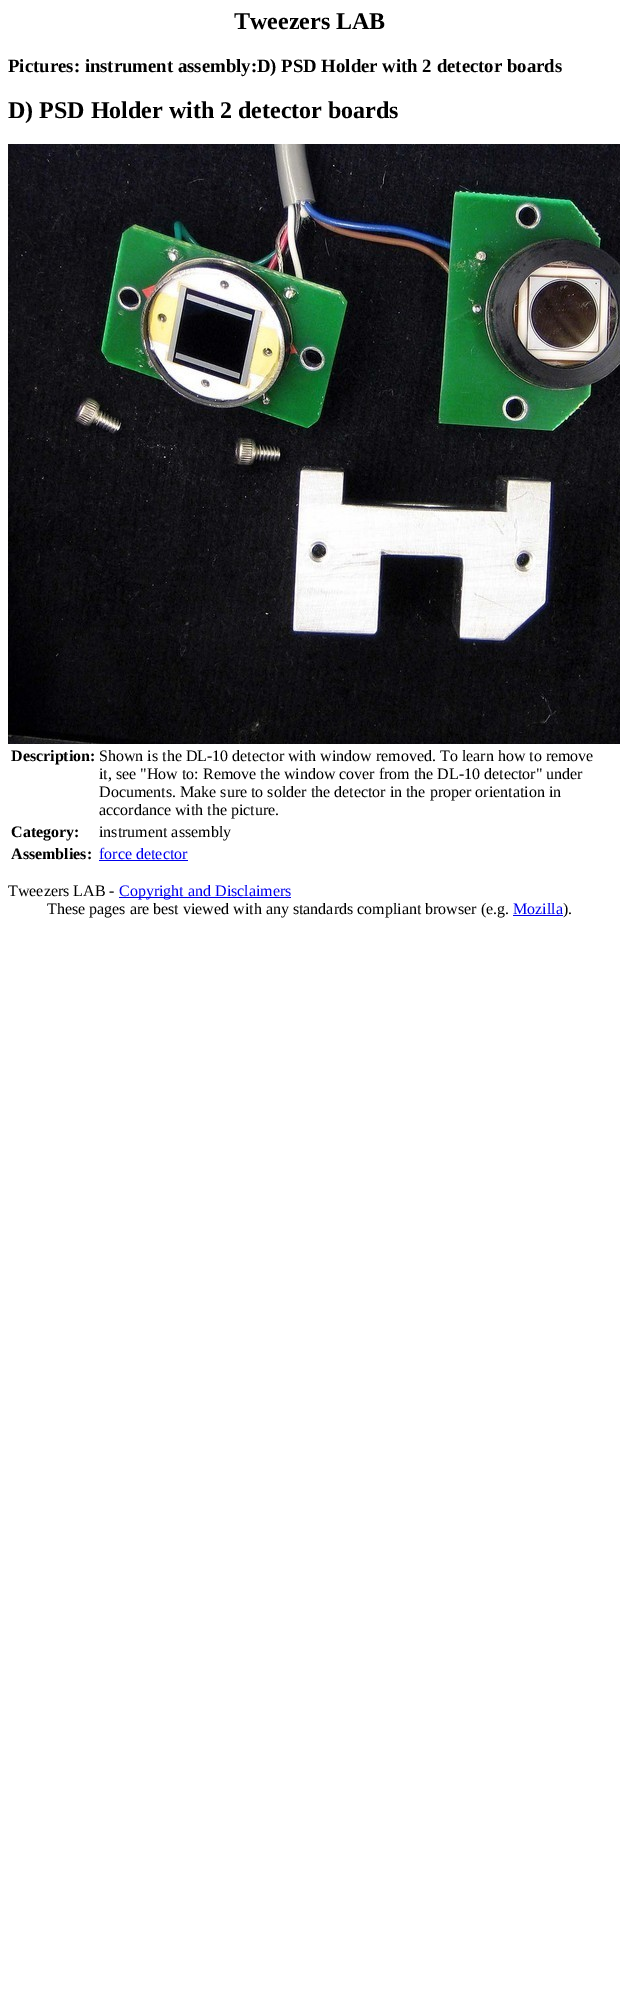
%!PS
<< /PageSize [620 2013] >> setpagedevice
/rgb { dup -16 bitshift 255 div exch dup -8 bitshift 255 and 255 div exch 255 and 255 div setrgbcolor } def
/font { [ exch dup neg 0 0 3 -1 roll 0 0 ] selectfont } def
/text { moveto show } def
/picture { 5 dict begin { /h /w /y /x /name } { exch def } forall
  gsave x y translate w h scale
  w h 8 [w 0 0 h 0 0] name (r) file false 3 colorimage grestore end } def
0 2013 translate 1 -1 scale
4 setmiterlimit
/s1 { /LiberationSerif-Bold 24 font 16#000000 rgb } def
/s2 { /LiberationSerif-Bold 18.75 font 16#000000 rgb } def
/s3 { /LiberationSerif-Bold 16 font 16#000000 rgb } def
/s4 { /LiberationSerif-Regular 16 font 16#000000 rgb } def
/s5 { /LiberationSerif-Regular 16 font 16#0000EE rgb } def
16#FFFFFF rgb
0 0 620 2013 rectfill
s1
(Tweezers LAB) 234 29 text
s2
(Pictures: instrument assembly:D\) PSD Holder with 2 detector boards) 8 72 text
s1
(D\) PSD Holder with 2 detector boards) 8 118 text
(pic1.raw) 8 144 612 600 picture
s3
(Description:) 11 761 text
s4
(Shown is the DL-10 detector with window removed. To learn how to remove) 99 761 text
(it, see "How to: Remove the window cover from the DL-10 detector" under) 99 779 text
(Documents. Make sure to solder the detector in the proper orientation in) 99 797 text
(accordance with the picture.) 99 815 text
s3
(Category:) 11 837 text
s4
(instrument assembly) 99 837 text
s3
(Assemblies:) 11 859 text
s5
(force detector) 99 859 text
99 860 89 1 rectfill
s4
(Tweezers LAB -) 8 896 text
16#0000EE rgb
119 897 172 1 rectfill
(Copyright and Disclaimers) 119 896 text
s4
(These pages are best viewed with any standards compliant browser \(e.g.) 47 914 text
s5
(Mozilla) 513 914 text
513 915 50 1 rectfill
s4
(\).) 563 914 text
showpage
